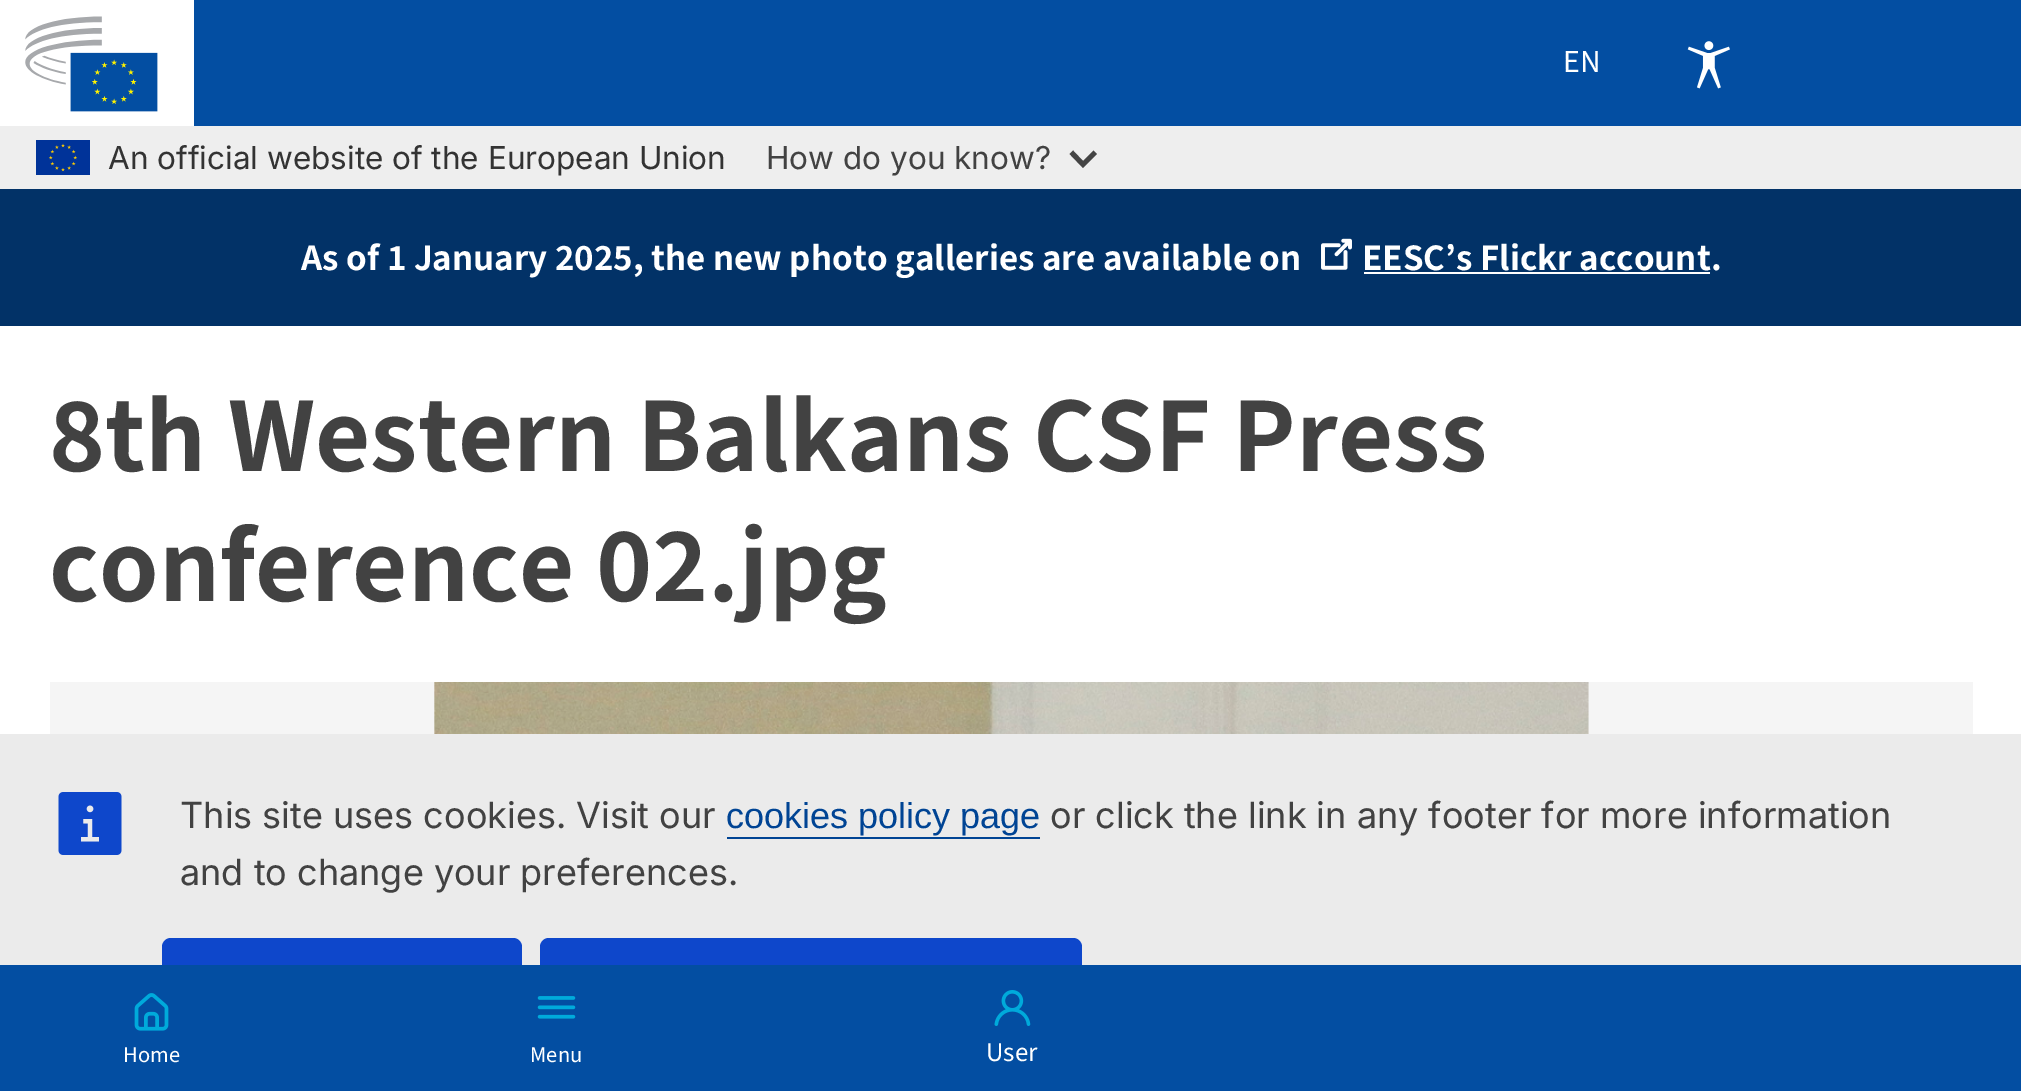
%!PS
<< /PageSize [2021 1091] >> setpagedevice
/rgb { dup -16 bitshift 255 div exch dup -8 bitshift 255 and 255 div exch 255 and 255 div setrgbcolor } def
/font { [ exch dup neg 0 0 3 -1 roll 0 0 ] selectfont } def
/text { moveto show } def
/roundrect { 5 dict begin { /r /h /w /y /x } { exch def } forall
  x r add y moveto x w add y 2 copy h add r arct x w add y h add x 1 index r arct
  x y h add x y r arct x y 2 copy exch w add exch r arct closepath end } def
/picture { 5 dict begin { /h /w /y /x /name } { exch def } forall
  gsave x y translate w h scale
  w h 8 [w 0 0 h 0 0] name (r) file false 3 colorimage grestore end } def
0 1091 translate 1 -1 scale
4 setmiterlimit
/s1 { /SourceSans3-Regular 32 font 16#FFFFFF rgb } def
/s2 { /SourceSans3-Regular 22.5 font 16#FFFFFF rgb } def
/s3 { /SourceSans3-Regular 27 font 16#FFFFFF rgb } def
/s4 { /SourceSans3-SemiBold 37.5 font 16#FFFFFF rgb } def
/s5 { /SourceSans3-SemiBold 108 font 16#424242 rgb } def
/s6 { /Inter-Regular 31.5 font 16#333333 rgb } def
/s7 { /Inter-Regular 31.5 font 16#424242 rgb } def
/s8 { /Inter-Regular 36 font 16#424242 rgb } def
/s9 { /LiberationSans-Regular 36 font 16#004494 rgb } def
16#FFFFFF rgb
0 0 2021 1091 rectfill
(pic1.raw) 25 16 133 96 picture
16#034EA2 rgb
194 0 1827 126 rectfill
16#EBEBEB rgb
0 734 2021 231 rectfill
16#0E47CB rgb
162 938 360 99 9 roundrect fill
540 938 542 99 9 roundrect fill
16#034EA2 rgb
0 965 2021 126 rectfill
s1
(EN) 1563 72 text
(pic2.raw) 1687 41 43 48 picture
(pic3.raw) 134 993 35 38 picture
s2
(Home) 123 1062 text
(pic4.raw) 537 996 39 23 picture
(Menu) 530 1062 text
(pic5.raw) 994 990 37 36 picture
s3
(User) 986 1061 text
16#023267 rgb
0 189 2021 137 rectfill
s4
(As of 1 January 2025, the new photo galleries are available on) 301 270 text
(pic6.raw) 1321 238 31 32 picture
(EESC’s Flickr account.) 1362 270 text
1364 272 346 2 rectfill
s5
(8th Western Balkans CSF Press) 49 471 text
(conference 02.jpg) 49 601 text
16#F5F5F5 rgb
50 682 1923 52 rectfill
(pic7.raw) 434 682 1155 52 picture
16#EEEEEE rgb
0 126 2021 63 rectfill
(pic8.raw) 36 140 54 35 picture
s6
(An official website of the European Union) 108 169 text
s7
(How do you know?) 766 169 text
16#444444 rgb
2.8 setlinewidth
1071.5 154 moveto 1073 152.5 lineto 1083 163 lineto 1093.5 152.5 lineto 1095 154 lineto 1083 166 lineto closepath stroke
(pic9.raw) 58 792 64 63 picture
s8
(This site uses cookies. Visit our) 180 828 text
s9
(cookies policy page) 726 828 text
727 837 313 2 rectfill
s8
(or click the link in any footer for more information) 1050 828 text
(and to change your preferences.) 180 885 text
showpage
